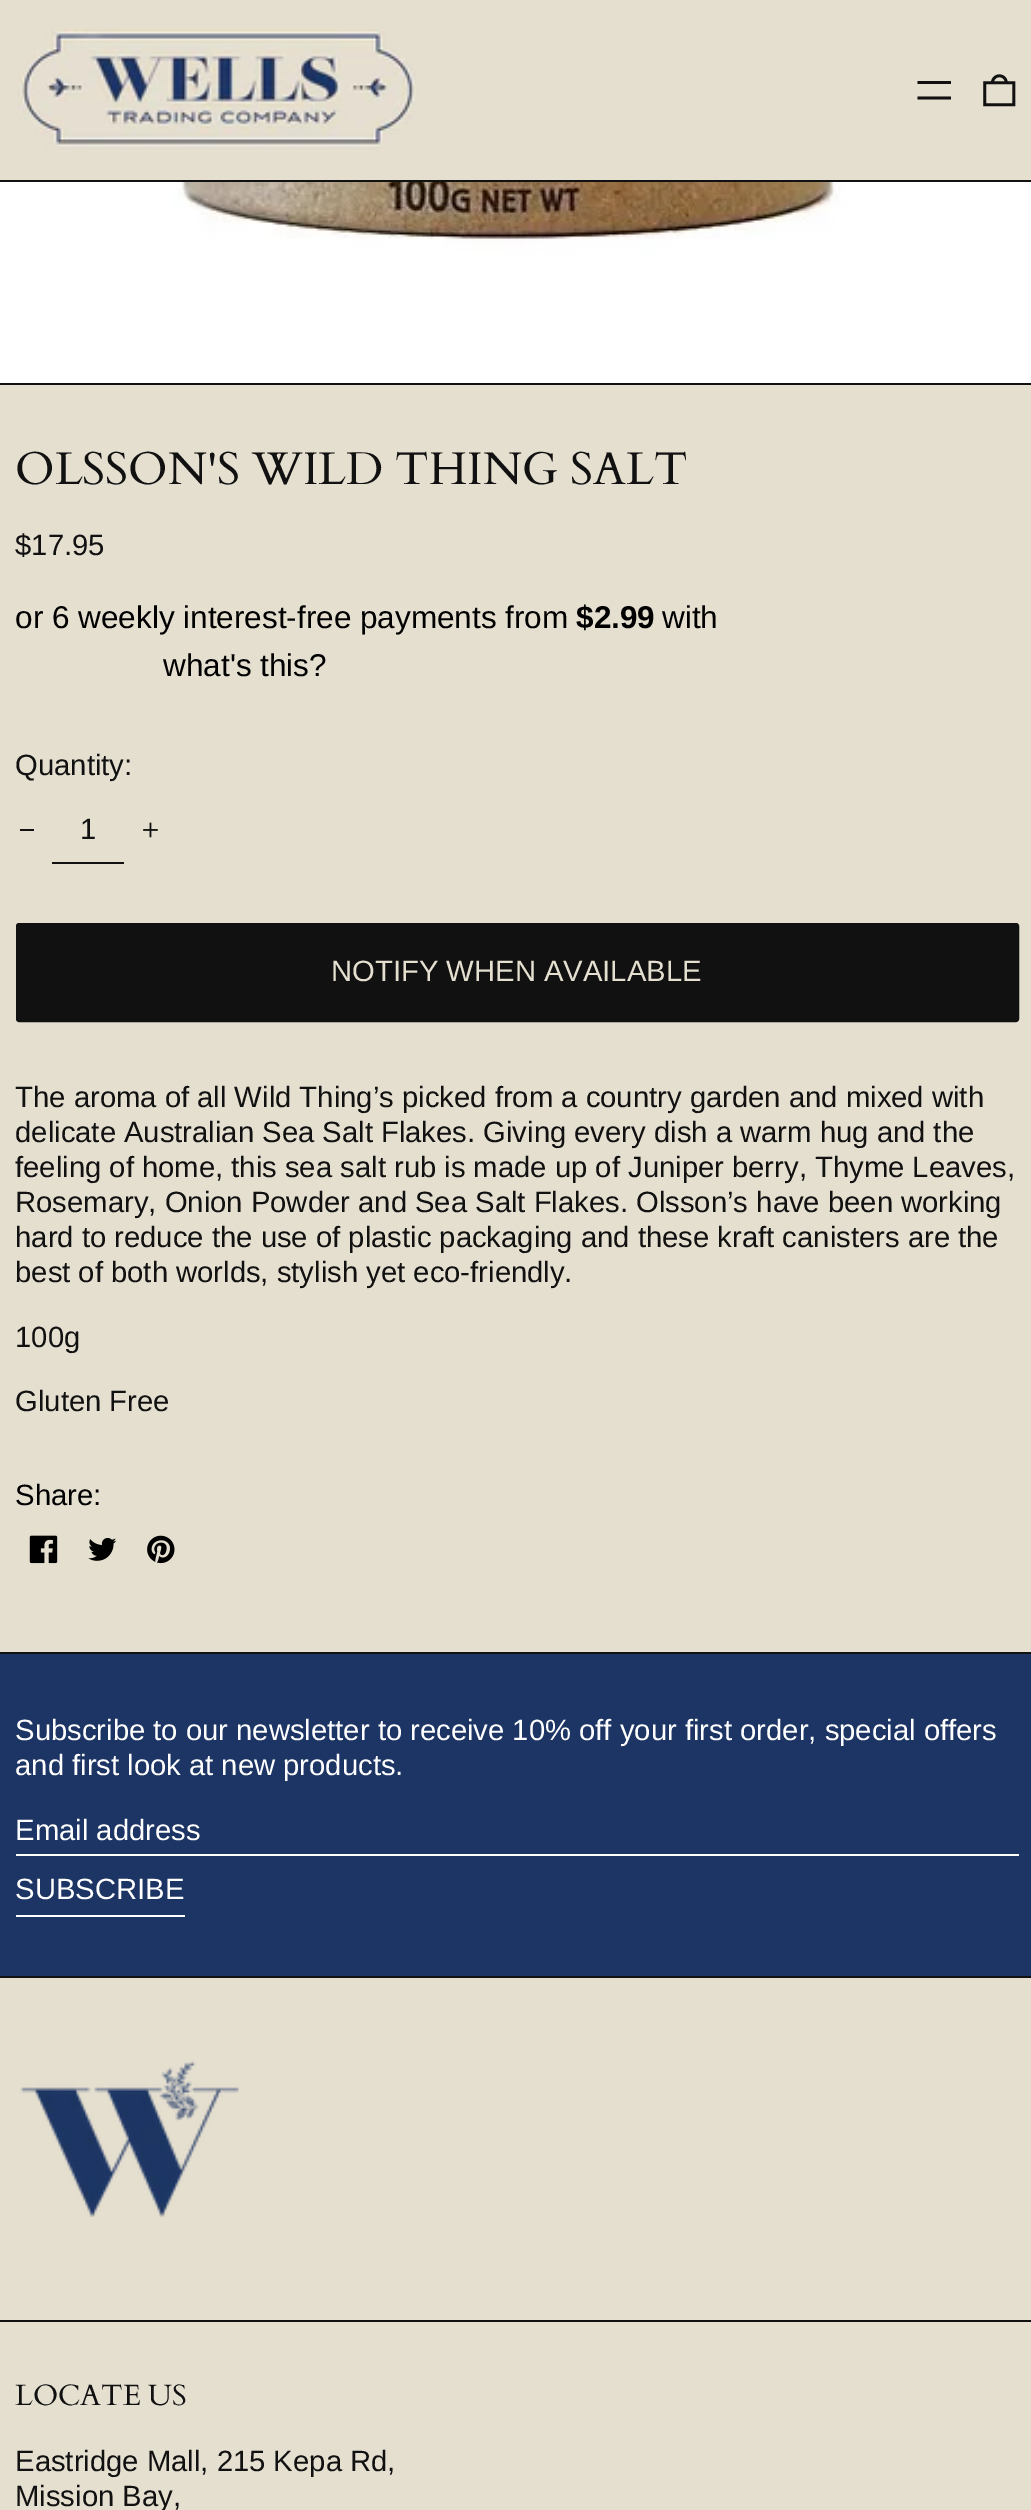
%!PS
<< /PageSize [1031 2510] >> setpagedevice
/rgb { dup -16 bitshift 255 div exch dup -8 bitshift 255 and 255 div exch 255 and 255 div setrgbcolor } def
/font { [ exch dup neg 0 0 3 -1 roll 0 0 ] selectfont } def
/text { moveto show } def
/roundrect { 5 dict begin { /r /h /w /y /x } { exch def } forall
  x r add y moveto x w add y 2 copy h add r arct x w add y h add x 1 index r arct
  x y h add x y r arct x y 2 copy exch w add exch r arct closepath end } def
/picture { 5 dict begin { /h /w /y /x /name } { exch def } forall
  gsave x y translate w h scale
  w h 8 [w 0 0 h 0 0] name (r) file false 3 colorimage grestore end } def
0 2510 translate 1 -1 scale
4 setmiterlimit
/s1 { /Cardo-Regular 45.75 font 16#111111 rgb } def
/s2 { /LiberationSans-Regular 29.25 font 16#111111 rgb } def
/s3 { /LiberationSans-Regular 31.5 font 16#000000 rgb } def
/s4 { /LiberationSans-Bold 31.5 font 16#000000 rgb } def
/s5 { /LiberationSans-Regular 29.25 font 16#E5DFD0 rgb } def
/s6 { /LiberationSans-Regular 29.25 font 16#000000 rgb } def
/s7 { /LiberationSans-Regular 29.25 font 16#FFFFFF rgb } def
/s8 { /Cardo-Regular 29.25 font 16#111111 rgb } def
16#E5DFD0 rgb
0 0 1031 2510 rectfill
16#111111 rgb
0 180 1031 2 rectfill
(pic1.raw) 17 29 401 121 picture
951 96.5 moveto 951 99.5 lineto 917.5 99.5 lineto 917.5 96.5 lineto closepath 951 81 moveto 951 84 lineto 917.5 84 lineto 917.5 81 lineto closepath eofill
(pic2.raw) 983 74 33 33 picture
0 383 1031 2 rectfill
(pic3.raw) 0 182 1031 201 picture
s1
(OLSSON'S WILD THING SALT) 15 484 text
s2
($17.95) 15 555 text
s3
(or 6 weekly interest-free payments from) 15 628 text
s4
($2.99) 576 628 text
s3
(with) 662 628 text
(what's this?) 163 676 text
s2
(Quantity:) 15 775 text
20 829 14 2 rectfill
52 862 72 2 rectfill
(1) 80 839 text
(pic4.raw) 143 822 15 16 picture
17 924 1001 97 2 roundrect gsave fill grestore
2 setlinewidth
stroke
s5
(NOTIFY WHEN AVAILABLE) 331 981 text
s2
(The aroma of all Wild Thing’s picked from a country garden and mixed with) 15 1107 text
(delicate Australian Sea Salt Flakes. Giving every dish a warm hug and the) 15 1142 text
(feeling of home, this sea salt rub is made up of Juniper berry, Thyme Leaves,) 15 1177 text
(Rosemary, Onion Powder and Sea Salt Flakes. Olsson’s have been working) 15 1212 text
(hard to reduce the use of plastic packaging and these kraft canisters are the) 15 1247 text
(best of both worlds, stylish yet eco-friendly.) 15 1282 text
(100g) 15 1347 text
(Gluten Free) 15 1411 text
s6
(Share:) 15 1505 text
(pic5.raw) 29 1535 29 29 picture
(pic6.raw) 88 1537 29 24 picture
(pic7.raw) 147 1535 28 29 picture
16#1D3564 rgb
0 1654 1031 322 rectfill
16#111111 rgb
0 1652 1031 2 rectfill
s7
(Subscribe to our newsletter to receive 10% off your first order, special offers) 15 1740 text
(and first look at new products.) 15 1775 text
16 1854 1003 2 rectfill
(Email address) 15 1840 text
16 1915 169 2 rectfill
(SUBSCRIBE) 15 1899 text
16#111111 rgb
0 1976 1031 2 rectfill
0 2320 1031 2 rectfill
(pic8.raw) 20 2060 219 157 picture
s8
(LOCATE US) 15 2405 text
s2
(Eastridge Mall, 215 Kepa Rd,) 15 2471 text
(Mission Bay,) 15 2506 text
showpage
